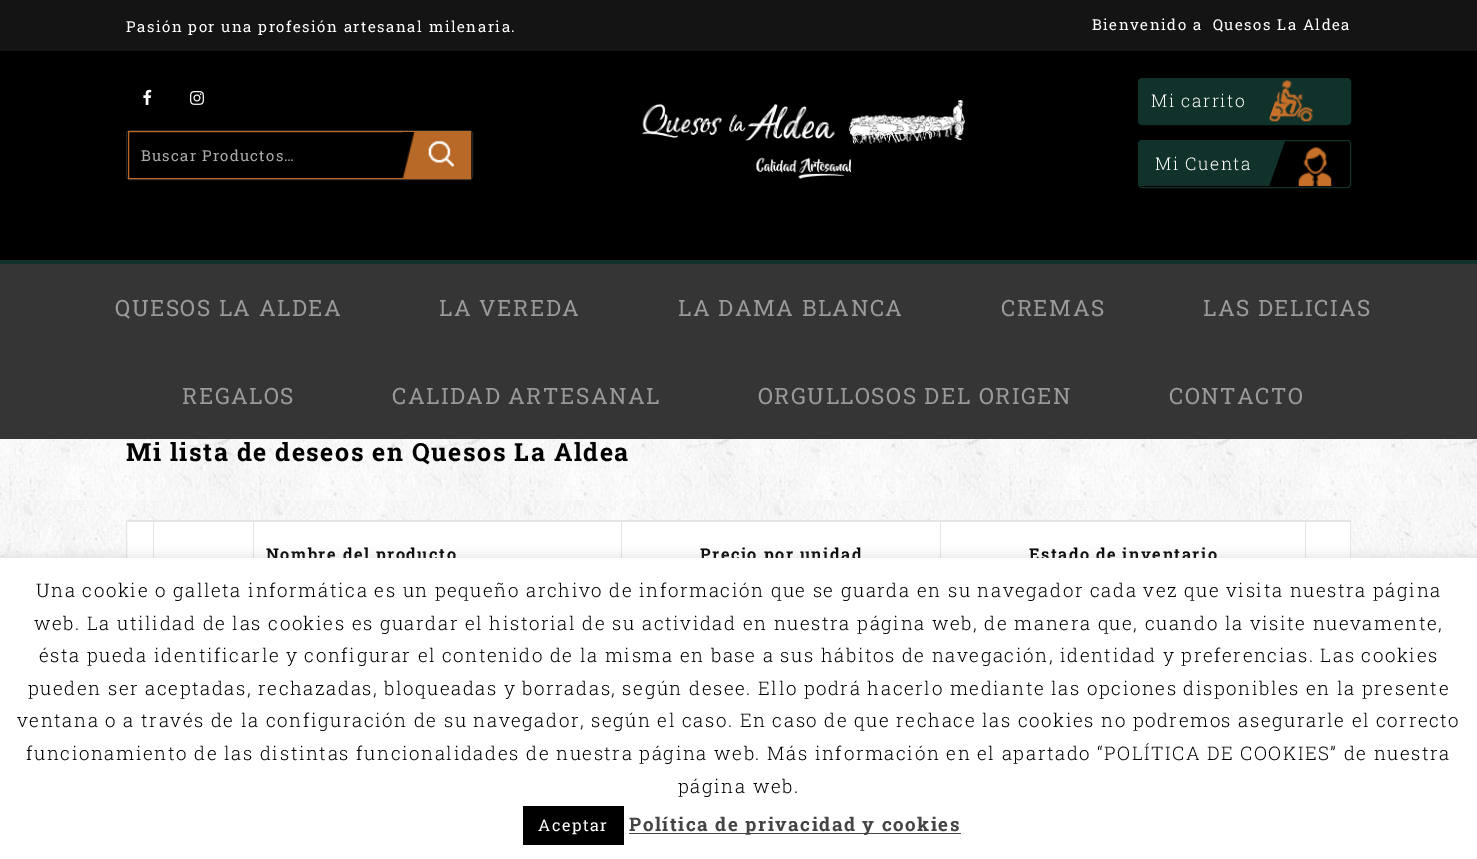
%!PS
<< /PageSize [1477 859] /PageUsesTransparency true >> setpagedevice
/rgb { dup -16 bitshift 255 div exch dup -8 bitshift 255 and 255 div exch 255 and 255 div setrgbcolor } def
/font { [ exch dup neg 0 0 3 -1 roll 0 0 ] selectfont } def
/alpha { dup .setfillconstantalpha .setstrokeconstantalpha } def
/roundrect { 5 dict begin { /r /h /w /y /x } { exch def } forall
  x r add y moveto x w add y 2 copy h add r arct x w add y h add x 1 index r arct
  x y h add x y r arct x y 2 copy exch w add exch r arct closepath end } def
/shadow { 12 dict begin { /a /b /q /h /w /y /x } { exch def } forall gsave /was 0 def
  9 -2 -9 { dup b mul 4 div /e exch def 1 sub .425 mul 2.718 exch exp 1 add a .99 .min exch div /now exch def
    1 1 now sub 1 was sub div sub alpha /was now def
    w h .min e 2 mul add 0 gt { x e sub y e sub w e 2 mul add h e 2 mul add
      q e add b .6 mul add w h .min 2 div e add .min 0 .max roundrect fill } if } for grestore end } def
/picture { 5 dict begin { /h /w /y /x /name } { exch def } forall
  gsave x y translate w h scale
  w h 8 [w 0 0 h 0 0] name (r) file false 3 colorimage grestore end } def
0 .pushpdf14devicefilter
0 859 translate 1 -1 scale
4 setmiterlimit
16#FFFFFF rgb
0 0 1477 859 rectfill
(pic1.raw) 0 439 1477 119 picture
16#000000 rgb
0 51 1477 209 rectfill
16#141414 rgb
0 0 1477 51 rectfill
/RobotoSlab-Regular 15 font
16#FFFFFF rgb
126 32 moveto 1.5 0 (Pasión por una profesión artesanal milenaria.) ashow
1092 30 moveto 1.5 0 (Bienvenido a  Quesos La Aldea) ashow
(pic2.raw) 143 89 9 16 picture
(pic3.raw) 190 91 14 14 picture
16#242424 rgb
126.5 130.5 346 49 3.5 roundrect stroke
16#B86927 rgb
128.5 131.5 342 47 rectstroke
16#AAAAAA rgb
141 161 moveto 1.25 0 (Buscar Productos…) ashow
(pic4.raw) 402 131 70 48 picture
(pic5.raw) 642 100 323 79 picture
16#11322B rgb
1138.5 78.5 212 46 3.5 roundrect stroke
1267 79 83 45 rectfill
(pic6.raw) 1268 80 45 42 picture
gsave
1139 79 211 45 rectclip
1138 79 moveto 1283 79 lineto 1267 124 lineto 1122 124 lineto closepath fill
grestore
/RobotoSlab-Light 17.5 font
16#FFFFFF rgb
1151 107 moveto 1.5 0 (Mi carrito) ashow
16#11322B rgb
1138.5 140.5 212 47 3.5 roundrect stroke
gsave
1139 141 211 45 rectclip
1138 141 moveto 1285 141 lineto 1269 186 lineto 1122 186 lineto closepath fill
grestore
16#FFFFFF rgb
1155 170 moveto 1.5 0 (Mi Cuenta) ashow
(pic7.raw) 1298 147 34 40 picture
16#353535 rgb
0 264 1477 175 rectfill
16#11322B rgb
0 260 1477 4 rectfill
/RobotoSlab-Regular 22.5 font
16#9A9A9A rgb
115 316 moveto 1.5 0 (QUESOS LA ALDEA) ashow
439 316 moveto 1.5 0 (LA VEREDA) ashow
678 316 moveto 1.5 0 (LA DAMA BLANCA) ashow
1001 316 moveto 1.5 0 (CREMAS) ashow
1203 316 moveto 1.5 0 (LAS DELICIAS) ashow
182 404 moveto 1.5 0 (REGALOS) ashow
392 404 moveto 1.5 0 (CALIDAD ARTESANAL) ashow
758 404 moveto 1.5 0 (ORGULLOSOS DEL ORIGEN) ashow
1169 404 moveto 1.5 0 (CONTACTO) ashow
/RobotoSlab-Bold 25 font
16#000000 rgb
126 461 moveto 1.5 0 (Mi lista de deseos en Quesos La Aldea) ashow
16#FFFFFF rgb
128 522 1222 36 rectfill
16#E5E5E5 rgb
126 520 1225 1 rectfill
126 520 1 38 rectfill
128 521 1223 1 rectfill
153 521 1 37 rectfill
253 521 1 37 rectfill
621 521 1 37 rectfill
/RobotoSlab-Bold 16.25 font
16#000000 rgb
266 560 moveto 1.5 0 (Nombre del producto) ashow
16#E5E5E5 rgb
940 521 1 37 rectfill
16#000000 rgb
700 560 moveto 1.5 0 (Precio por unidad) ashow
16#E5E5E5 rgb
1305 521 1 37 rectfill
16#000000 rgb
1029 560 moveto 1.5 0 (Estado de inventario) ashow
16#E5E5E5 rgb
1350 521 1 37 rectfill
16#ACABAB rgb
0 556 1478 303 0 6 0.3 shadow
16#FFFFFF rgb
0 558 1477 301 rectfill
/RobotoSlab-Light 18.75 font
16#000000 rgb
36 597 moveto 1.5 0 (Una cookie o galleta informática es un pequeño archivo de información que se guarda en su navegador cada vez que visita nuestra página) ashow
34 630 moveto 1.5 0 (web. La utilidad de las cookies es guardar el historial de su actividad en nuestra página web, de manera que, cuando la visite nuevamente,) ashow
39 662 moveto 1.5 0 (ésta pueda identificarle y configurar el contenido de la misma en base a sus hábitos de navegación, identidad y preferencias. Las cookies) ashow
28 695 moveto 1.5 0 (pueden ser aceptadas, rechazadas, bloqueadas y borradas, según desee. Ello podrá hacerlo mediante las opciones disponibles en la presente) ashow
17 727 moveto 1.5 0 (ventana o a través de la configuración de su navegador, según el caso. En caso de que rechace las cookies no podremos asegurarle el correcto) ashow
26 760 moveto 1.5 0 (funcionamiento de las distintas funcionalidades de nuestra página web. Más información en el apartado “POLÍTICA DE COOKIES” de nuestra) ashow
678 793 moveto 1.5 0 (página web.) ashow
523 806 101 39 rectfill
/RobotoSlab-Regular 16.25 font
16#FFFFFF rgb
538 831 moveto 1.5 0 (Aceptar) ashow
16#444444 rgb
629 833 332 1 rectfill
/RobotoSlab-Bold 18.75 font
629 831 moveto 1.5 0 (Política de privacidad y cookies) ashow
.poppdf14devicefilter showpage
